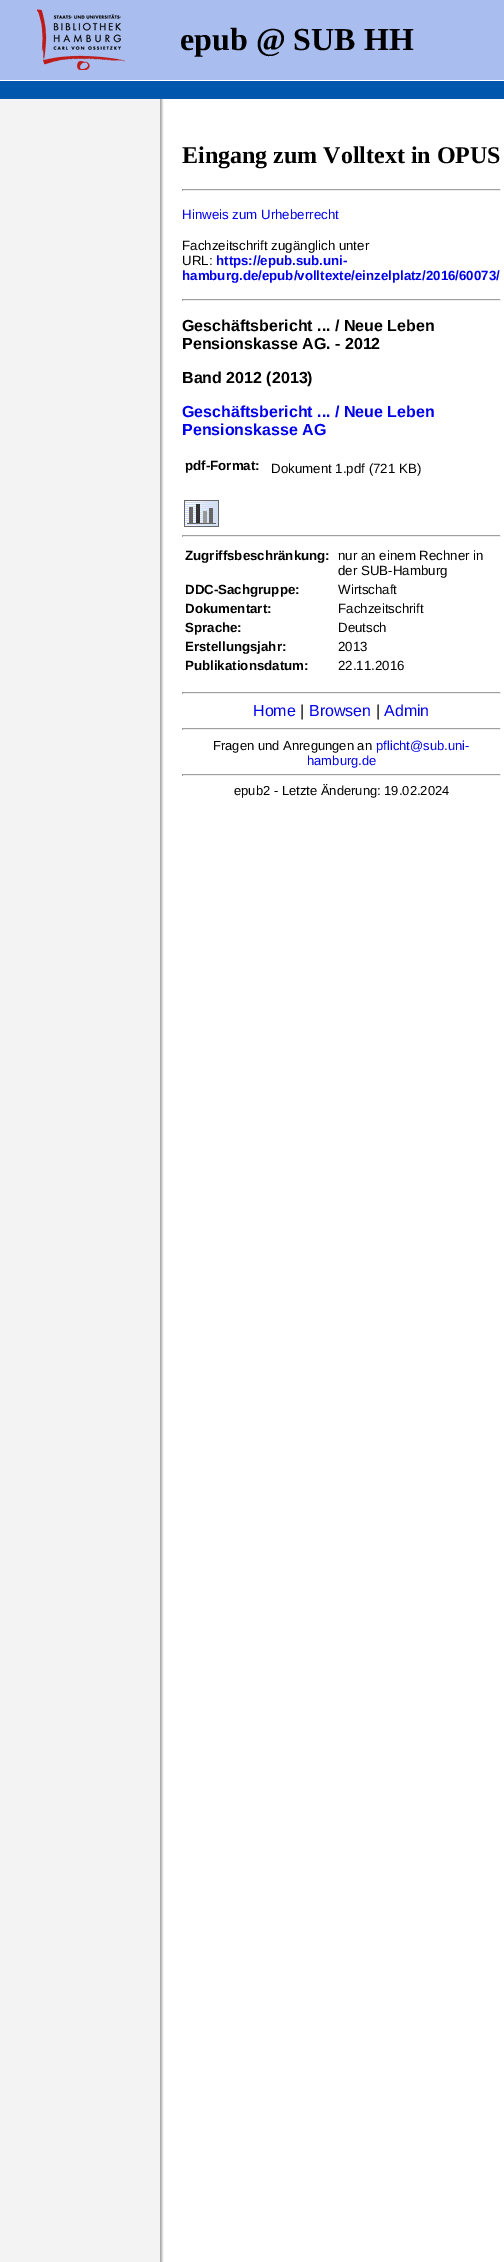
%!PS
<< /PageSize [504 2262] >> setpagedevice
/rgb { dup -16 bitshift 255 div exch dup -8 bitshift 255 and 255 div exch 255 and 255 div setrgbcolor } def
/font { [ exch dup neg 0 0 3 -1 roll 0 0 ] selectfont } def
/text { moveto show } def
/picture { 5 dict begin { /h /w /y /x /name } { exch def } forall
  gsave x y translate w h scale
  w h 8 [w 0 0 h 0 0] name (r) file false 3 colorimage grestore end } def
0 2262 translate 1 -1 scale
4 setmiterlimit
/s1 { /LiberationSerif-Bold 32 font 16#000000 rgb } def
/s2 { /LiberationSerif-Bold 24 font 16#000000 rgb } def
/s3 { /LiberationSans-Regular 13.3 font 16#0000EE rgb } def
/s4 { /LiberationSans-Regular 13.3 font 16#000000 rgb } def
/s5 { /LiberationSans-Bold 13.3 font 16#0000EE rgb } def
/s6 { /LiberationSans-Bold 16 font 16#000000 rgb } def
/s7 { /LiberationSans-Bold 16 font 16#0000EE rgb } def
/s8 { /LiberationSans-Bold 13.3 font 16#000000 rgb } def
/s9 { /LiberationSans-Regular 16 font 16#0000EE rgb } def
/s10 { /LiberationSans-Regular 16 font 16#000000 rgb } def
/s11 { /LiberationSans-Regular 13 font 16#000000 rgb } def
/s12 { /LiberationSans-Regular 13 font 16#0000EE rgb } def
16#FFFFFF rgb
0 0 504 2262 rectfill
(pic1.raw) 0 99 164 2163 picture
16#A9BEEE rgb
0 0 504 80 rectfill
(pic2.raw) 37 9 88 61 picture
s1
(epub @ SUB HH) 180 50 text
16#0056AC rgb
0 81 504 18 rectfill
s2
(Eingang zum Volltext in OPUS) 182 163 text
16#9F9F9F rgb
182 189 319 1 rectfill
16#EEEEEE rgb
500 189 1 2 rectfill
182 190 319 1 rectfill
16#9F9F9F rgb
182 189 1 2 rectfill
s3
(Hinweis zum Urheberrecht) 182 219 text
s4
(Fachzeitschrift zugänglich unter) 182 250 text
(URL:) 182 265 text
s5
(https://epub.sub.uni-) 216 265 text
(hamburg.de/epub/volltexte/einzelplatz/2016/60073/) 182 280 text
16#9F9F9F rgb
182 299 319 1 rectfill
16#EEEEEE rgb
500 299 1 2 rectfill
182 300 319 1 rectfill
16#9F9F9F rgb
182 299 1 2 rectfill
s6
(Geschäftsbericht ... / Neue Leben) 182 331 text
(Pensionskasse AG. - 2012) 182 349 text
(Band 2012 \(2013\)) 182 383 text
s7
(Geschäftsbericht ... / Neue Leben) 182 417 text
(Pensionskasse AG) 182 435 text
s8
(pdf-Format:) 185 470 text
s4
(Dokument 1.pdf \(721 KB\)) 271 473 text
(pic3.raw) 184 500 35 27 picture
16#9F9F9F rgb
182 535 319 1 rectfill
16#EEEEEE rgb
500 535 1 2 rectfill
182 536 319 1 rectfill
16#9F9F9F rgb
182 535 1 2 rectfill
s8
(Zugriffsbeschränkung:) 185 560 text
s4
(nur an einem Rechner in) 338 560 text
(der SUB-Hamburg) 338 575 text
s8
(DDC-Sachgruppe:) 185 594 text
s4
(Wirtschaft) 338 594 text
s8
(Dokumentart:) 185 613 text
s4
(Fachzeitschrift) 338 613 text
s8
(Sprache:) 185 632 text
s4
(Deutsch) 338 632 text
s8
(Erstellungsjahr:) 185 651 text
s4
(2013) 338 651 text
s8
(Publikationsdatum:) 185 670 text
s4
(22.11.2016) 338 670 text
16#9F9F9F rgb
182 692 319 1 rectfill
16#EEEEEE rgb
500 692 1 2 rectfill
182 693 319 1 rectfill
16#9F9F9F rgb
182 692 1 2 rectfill
s9
(Home) 253 716 text
s10
(|) 300 716 text
s9
(Browsen) 309 716 text
s10
(|) 376 716 text
s9
(Admin) 384 716 text
16#9F9F9F rgb
182 728 319 1 rectfill
16#EEEEEE rgb
500 728 1 2 rectfill
182 729 319 1 rectfill
16#9F9F9F rgb
182 728 1 2 rectfill
s11
(Fragen und Anregungen an) 213 750 text
s12
(pflicht@sub.uni-) 376 750 text
(hamburg.de) 307 765 text
16#9F9F9F rgb
182 774 319 1 rectfill
16#EEEEEE rgb
500 774 1 2 rectfill
182 775 319 1 rectfill
16#9F9F9F rgb
182 774 1 2 rectfill
s11
(epub2 - Letzte Änderung: 19.02.2024) 234 795 text
showpage
